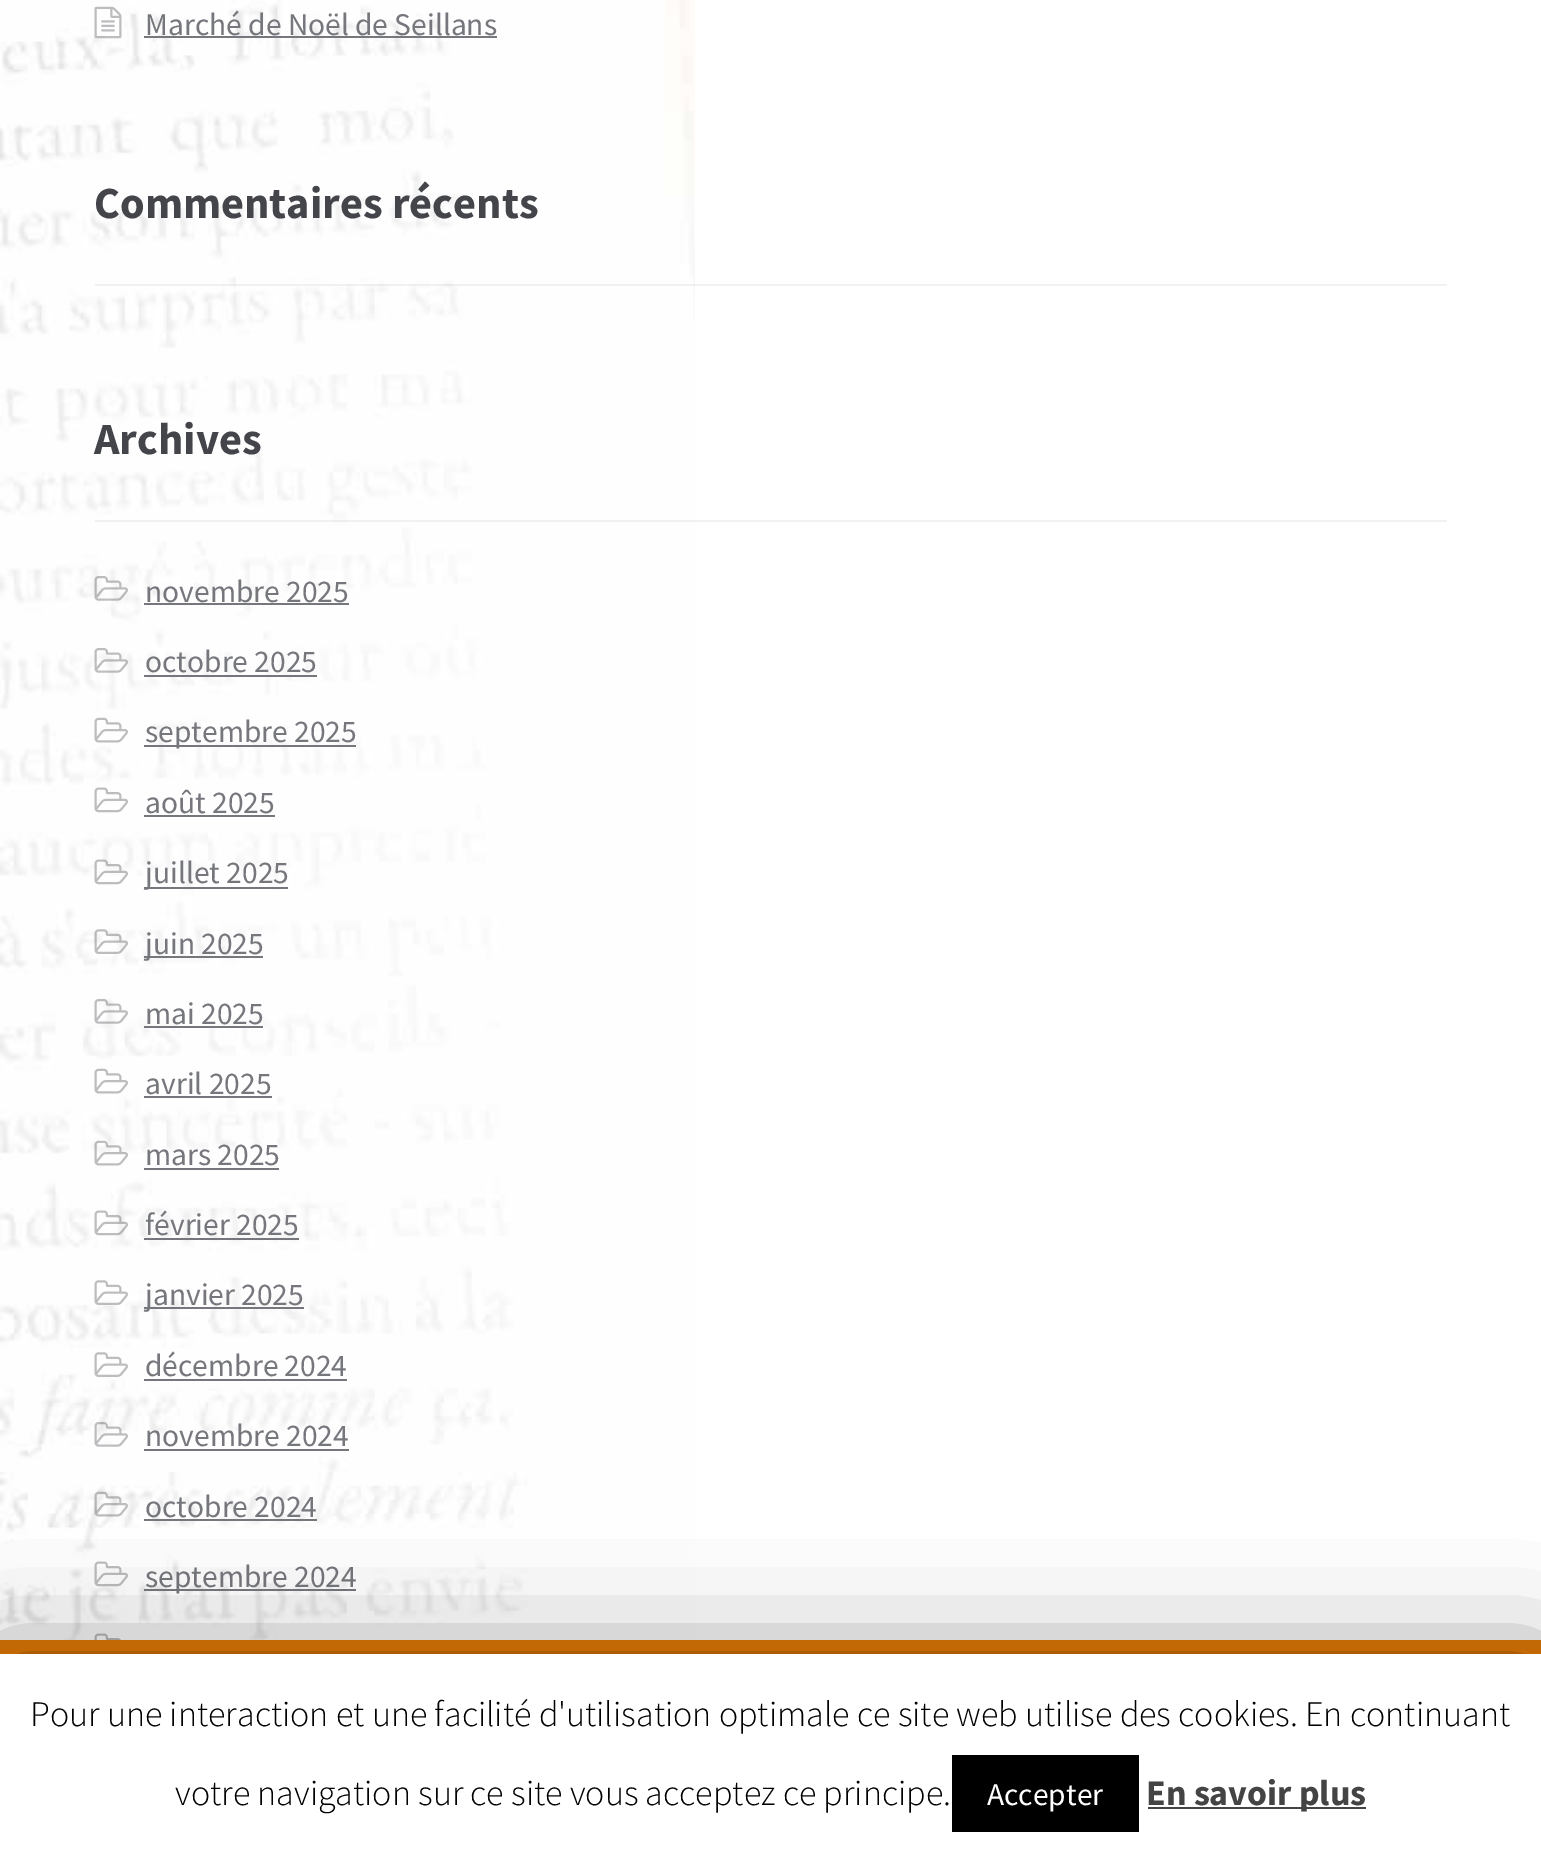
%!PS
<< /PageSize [1541 1859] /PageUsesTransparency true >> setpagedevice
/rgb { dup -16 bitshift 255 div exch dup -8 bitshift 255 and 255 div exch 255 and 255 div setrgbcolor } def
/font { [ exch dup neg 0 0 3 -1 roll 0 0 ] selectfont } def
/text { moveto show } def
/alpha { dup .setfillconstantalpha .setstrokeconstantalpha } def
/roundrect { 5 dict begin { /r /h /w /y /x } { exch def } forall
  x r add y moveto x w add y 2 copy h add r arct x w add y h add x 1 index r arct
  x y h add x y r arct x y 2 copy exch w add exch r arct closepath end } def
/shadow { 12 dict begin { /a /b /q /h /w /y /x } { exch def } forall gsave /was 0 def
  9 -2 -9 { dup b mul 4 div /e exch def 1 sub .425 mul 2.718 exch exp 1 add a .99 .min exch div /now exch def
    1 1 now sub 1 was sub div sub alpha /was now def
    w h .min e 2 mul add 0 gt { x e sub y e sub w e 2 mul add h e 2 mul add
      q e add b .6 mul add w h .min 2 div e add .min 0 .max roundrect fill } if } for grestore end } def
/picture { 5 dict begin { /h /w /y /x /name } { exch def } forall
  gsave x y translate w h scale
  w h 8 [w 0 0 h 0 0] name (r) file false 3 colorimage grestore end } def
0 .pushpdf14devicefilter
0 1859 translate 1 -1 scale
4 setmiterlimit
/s1 { /SourceSansPro-Regular 31.5 font 16#75777D rgb } def
/s2 { /SourceSansPro-Bold 44.5 font 16#43454B rgb } def
/s3 { /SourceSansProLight-Light 36 font 16#000000 rgb } def
/s4 { /SourceSansPro-Regular 31.5 font 16#FFFFFF rgb } def
/s5 { /SourceSansPro-Bold 36 font 16#444444 rgb } def
16#FFFFFF rgb
0 0 1541 1859 rectfill
(pic1.raw) 0 0 695 1640 picture
(pic2.raw) 94 6 28 33 picture
s1
(Marché de Noël de Seillans) 145 35 text
144 36 353 2 rectfill
0.05 alpha
16#000000 rgb
95 284 1352 2 rectfill
1 alpha
s2
(Commentaires récents) 94 218 text
0.05 alpha
16#000000 rgb
95 520 1352 2 rectfill
1 alpha
s2
(Archives) 94 454 text
(pic3.raw) 94 576 34 25 picture
s1
(novembre 2025) 145 602 text
144 603 205 2 rectfill
(pic4.raw) 94 648 34 25 picture
(octobre 2025) 145 672 text
144 675 173 2 rectfill
(pic5.raw) 94 717 34 26 picture
144 745 212 2 rectfill
(septembre 2025) 145 742 text
(pic6.raw) 94 787 34 26 picture
(août 2025) 145 813 text
144 815 131 2 rectfill
(pic7.raw) 94 859 34 26 picture
144 887 144 2 rectfill
(juillet 2025) 145 883 text
(pic8.raw) 94 929 34 25 picture
144 956 119 2 rectfill
(juin 2025) 145 954 text
(pic9.raw) 94 999 34 25 picture
(mai 2025) 145 1024 text
144 1026 119 2 rectfill
(pic10.raw) 94 1068 34 26 picture
(avril 2025) 145 1094 text
144 1096 128 2 rectfill
(pic11.raw) 94 1140 34 26 picture
(mars 2025) 145 1165 text
144 1168 135 2 rectfill
(pic12.raw) 94 1210 34 26 picture
(février 2025) 145 1235 text
144 1238 155 2 rectfill
(pic13.raw) 94 1280 34 25 picture
144 1307 160 2 rectfill
(janvier 2025) 145 1305 text
(pic14.raw) 94 1352 34 25 picture
(décembre 2024) 145 1376 text
144 1379 203 2 rectfill
(pic15.raw) 94 1422 34 25 picture
(novembre 2024) 145 1446 text
144 1449 205 2 rectfill
(pic16.raw) 94 1491 34 26 picture
(octobre 2024) 145 1517 text
144 1519 173 2 rectfill
(pic17.raw) 94 1561 34 26 picture
144 1589 212 2 rectfill
(septembre 2024) 145 1587 text
(pic18.raw) 94 1633 27 7 picture
16#E47A04 rgb
0 1640 1541 14 rectfill
16#000000 rgb
0 1665 1541 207 0 56 0.5 shadow
16#FFFFFF rgb
0 1654 1541 205 rectfill
s3
(Pour une interaction et une facilité d'utilisation optimale ce site web utilise des cookies. En continuant) 30 1726 text
(votre navigation sur ce site vous acceptez ce principe.) 175 1805 text
952 1755 187 77 rectfill
s4
(Accepter) 987 1805 text
16#444444 rgb
1148 1807 218 2 rectfill
s5
(En savoir plus) 1146 1805 text
.poppdf14devicefilter showpage
